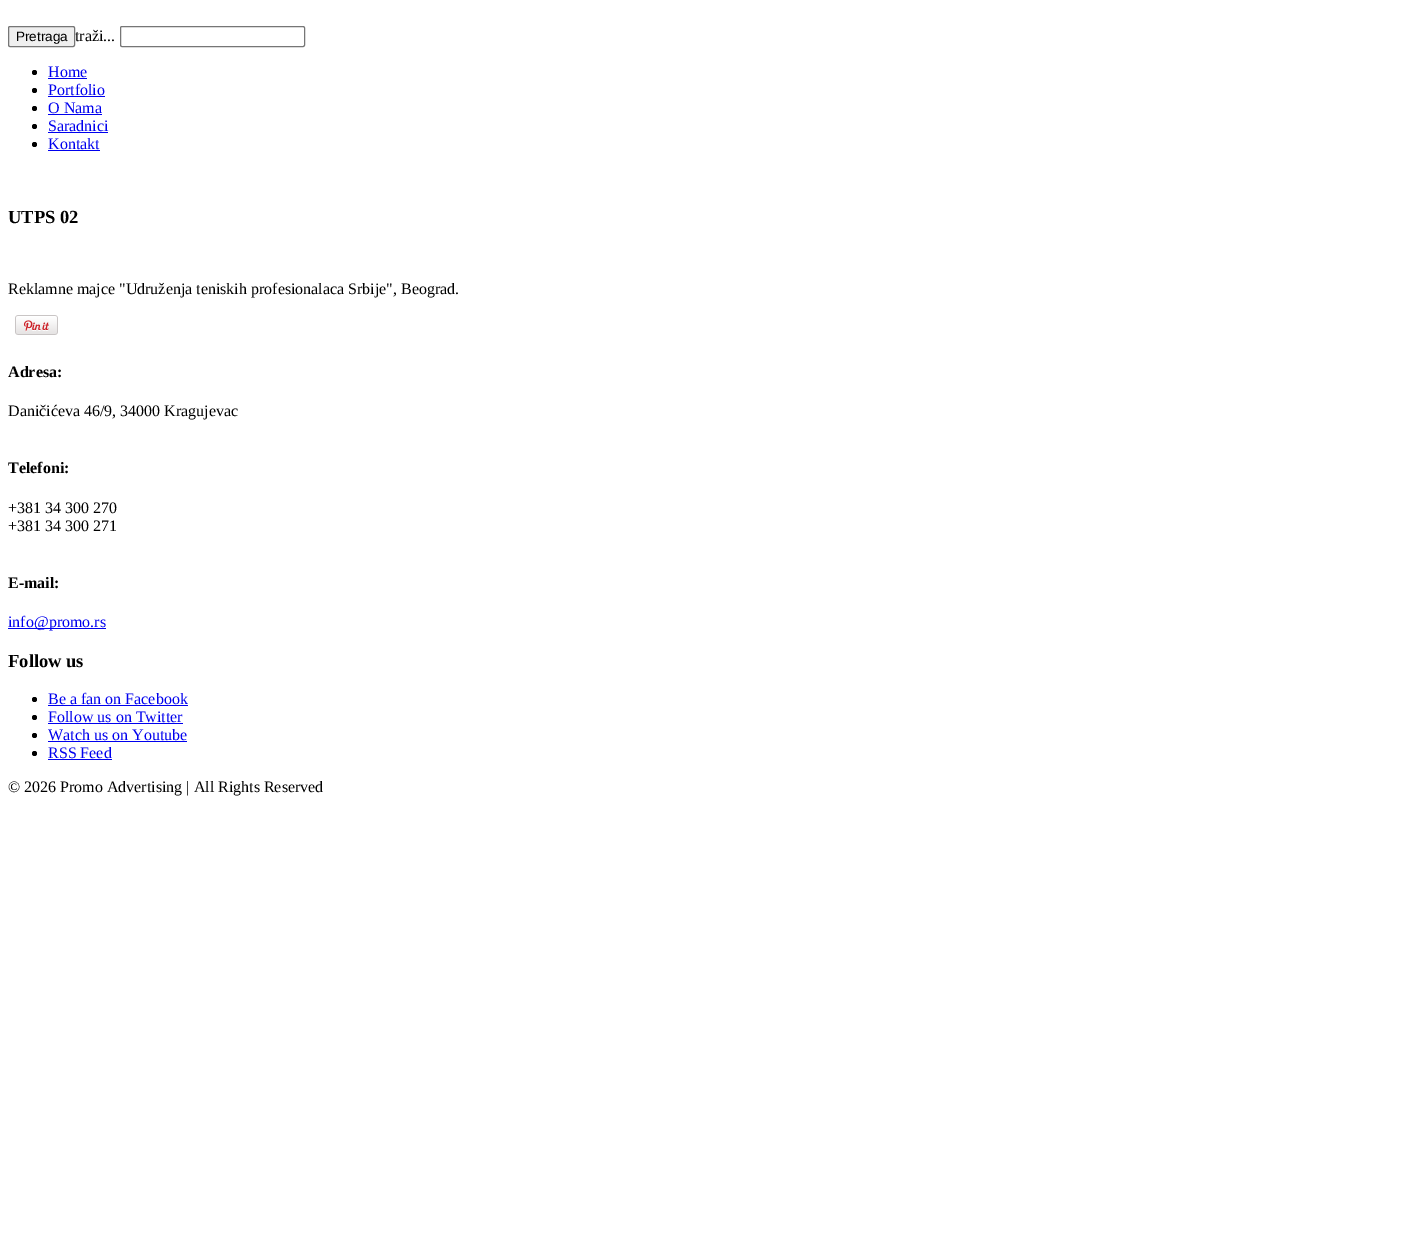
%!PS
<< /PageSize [1406 1258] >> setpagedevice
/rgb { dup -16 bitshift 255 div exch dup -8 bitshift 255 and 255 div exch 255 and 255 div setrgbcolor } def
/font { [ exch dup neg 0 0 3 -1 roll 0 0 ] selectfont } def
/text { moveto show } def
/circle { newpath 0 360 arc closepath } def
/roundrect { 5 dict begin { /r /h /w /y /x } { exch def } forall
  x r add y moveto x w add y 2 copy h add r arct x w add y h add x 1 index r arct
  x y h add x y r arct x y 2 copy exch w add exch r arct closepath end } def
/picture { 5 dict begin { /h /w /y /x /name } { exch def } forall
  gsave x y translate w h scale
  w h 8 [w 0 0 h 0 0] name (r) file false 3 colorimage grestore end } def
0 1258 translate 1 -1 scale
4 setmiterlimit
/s1 { /LiberationSans-Regular 13.5 font 16#000000 rgb } def
/s2 { /LiberationSerif-Regular 16 font 16#000000 rgb } def
/s3 { /LiberationSerif-Regular 16 font 16#0000EE rgb } def
/s4 { /LiberationSerif-Bold 18.5 font 16#000000 rgb } def
/s5 { /LiberationSerif-Bold 16 font 16#000000 rgb } def
16#FFFFFF rgb
0 0 1406 1258 rectfill
16#EFEFEF rgb
8.5 26.5 66 20 1.5 roundrect gsave fill grestore
16#767676 rgb
stroke
s1
(Pretraga) 16 41 text
s2
(traži...) 75 41 text
16#767676 rgb
120.5 26.5 184 20 1.5 roundrect stroke
16#000000 rgb
34.5 72.5 2.5 circle fill
s3
(Home) 48 77 text
48 78 39 1 rectfill
16#000000 rgb
34.5 90.5 2.5 circle fill
s3
(Portfolio) 48 95 text
48 96 57 1 rectfill
16#000000 rgb
34.5 108.5 2.5 circle fill
s3
(O Nama) 48 113 text
48 114 54 1 rectfill
16#000000 rgb
34.5 126.5 2.5 circle fill
s3
(Saradnici) 48 131 text
48 132 60 1 rectfill
16#000000 rgb
34.5 144.5 2.5 circle fill
s3
(Kontakt) 48 149 text
48 150 52 1 rectfill
s4
(UTPS 02) 8 223 text
s2
(Reklamne majce "Udruženja teniskih profesionalaca Srbije", Beograd.) 8 294 text
(pic1.raw) 15 315 43 20 picture
s5
(Adresa:) 8 377 text
s2
(Daničićeva 46/9, 34000 Kragujevac) 8 416 text
s5
(Telefoni:) 8 473 text
s2
(+381 34 300 270) 8 513 text
(+381 34 300 271) 8 531 text
s5
(E-mail:) 8 588 text
16#0000EE rgb
8 628 98 1 rectfill
s3
(info@promo.rs) 8 627 text
s4
(Follow us) 8 667 text
34.5 699.5 2.5 circle fill
s3
(Be a fan on Facebook) 48 704 text
48 705 140 1 rectfill
16#000000 rgb
34.5 717.5 2.5 circle fill
s3
(Follow us on Twitter) 48 722 text
48 723 135 1 rectfill
16#000000 rgb
34.5 735.5 2.5 circle fill
s3
(Watch us on Youtube) 48 740 text
48 741 139 1 rectfill
16#000000 rgb
34.5 753.5 2.5 circle fill
s3
(RSS Feed) 48 758 text
48 759 64 1 rectfill
s2
(© 2026 Promo Advertising | All Rights Reserved) 8 792 text
showpage
